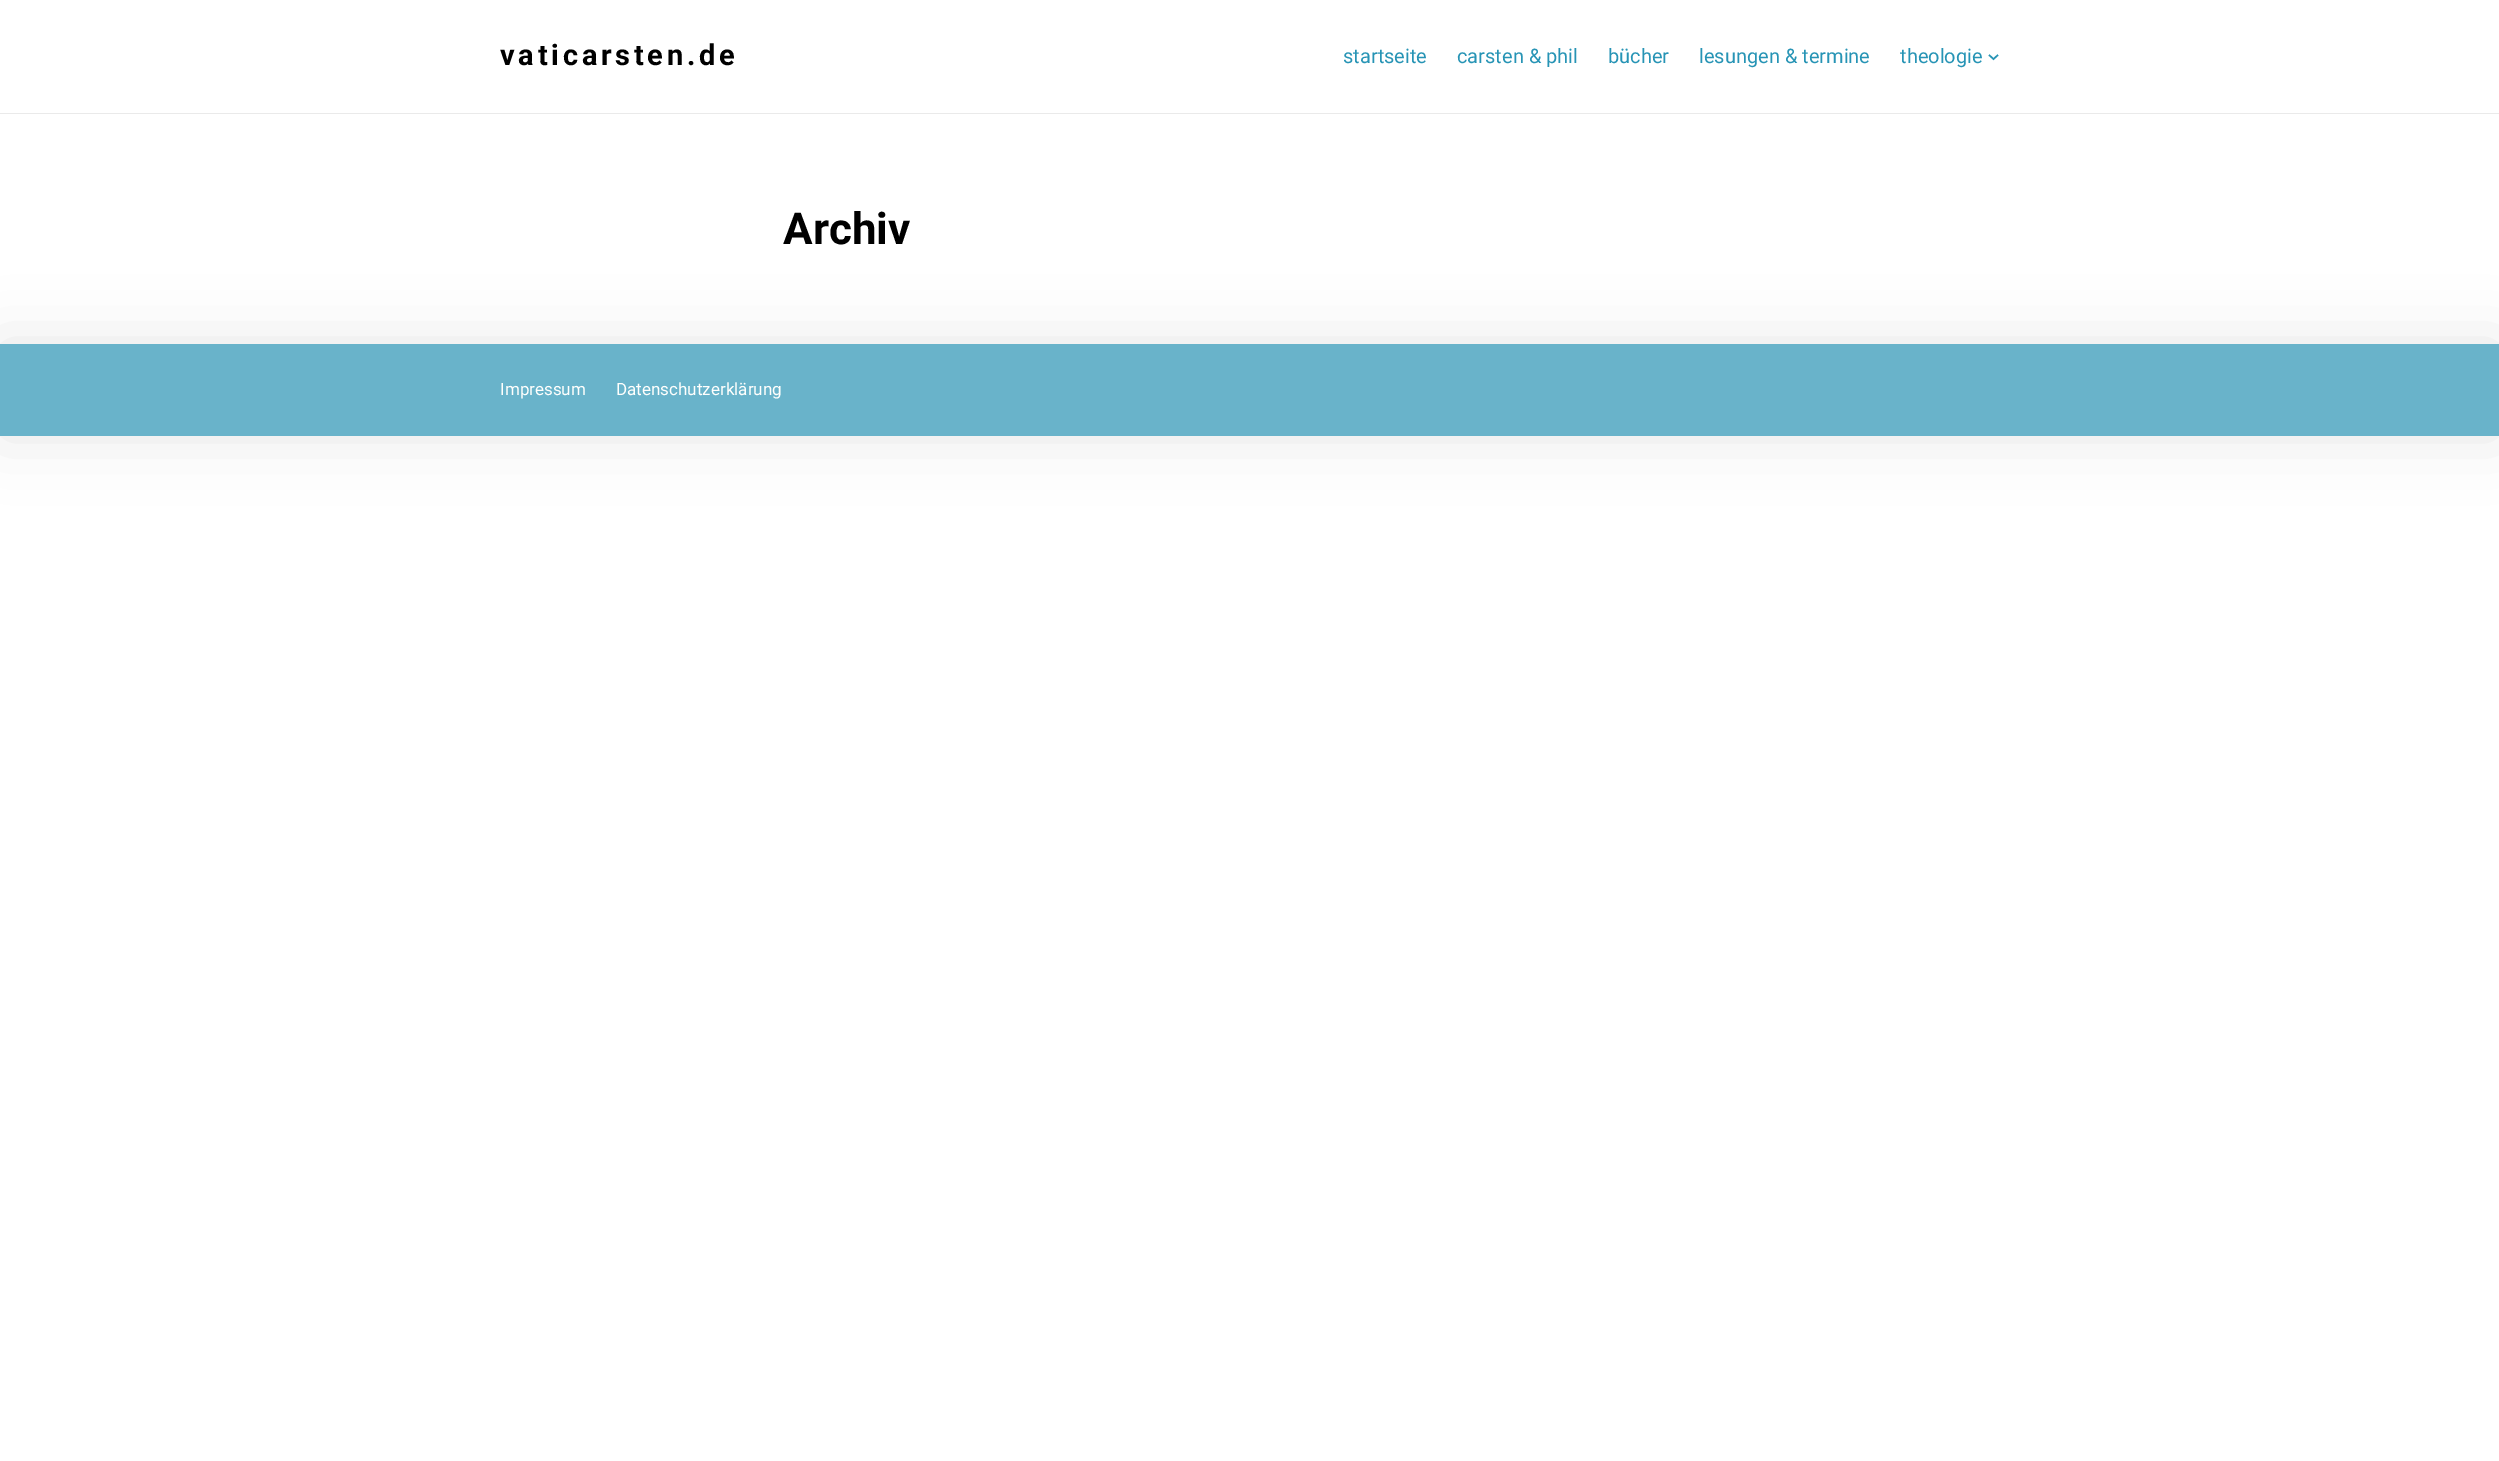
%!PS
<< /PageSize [2499 1461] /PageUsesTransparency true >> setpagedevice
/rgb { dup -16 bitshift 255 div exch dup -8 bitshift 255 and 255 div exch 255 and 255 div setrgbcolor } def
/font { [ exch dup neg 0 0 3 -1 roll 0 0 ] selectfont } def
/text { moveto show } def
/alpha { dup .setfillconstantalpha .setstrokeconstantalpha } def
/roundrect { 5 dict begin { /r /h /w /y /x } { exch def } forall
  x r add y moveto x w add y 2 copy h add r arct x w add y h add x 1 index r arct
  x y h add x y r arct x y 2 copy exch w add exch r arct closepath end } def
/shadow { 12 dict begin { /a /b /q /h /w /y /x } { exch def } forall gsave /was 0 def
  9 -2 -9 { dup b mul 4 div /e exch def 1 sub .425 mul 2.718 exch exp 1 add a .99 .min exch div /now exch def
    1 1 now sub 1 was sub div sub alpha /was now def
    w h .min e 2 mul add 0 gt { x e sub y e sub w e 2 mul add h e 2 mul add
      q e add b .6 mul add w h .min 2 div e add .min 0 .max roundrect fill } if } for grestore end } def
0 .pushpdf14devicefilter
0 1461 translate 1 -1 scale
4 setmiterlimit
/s1 { /Roboto-Regular 20 font 16#2794B5 rgb } def
/s2 { /Roboto-Bold 44 font 16#000000 rgb } def
/s3 { /Roboto-Regular 17 font 16#FFFFFD rgb } def
16#FFFFFF rgb
0 0 2499 1461 rectfill
16#EAEAEA rgb
0 113 2499 1 rectfill
/Roboto-Bold 29 font
16#000000 rgb
500 65 moveto 3.75 0 (vaticarsten.de) ashow
s1
(startseite) 1343 63 text
(carsten & phil) 1457 63 text
(bücher) 1608 63 text
(lesungen & termine) 1699 63 text
(theologie) 1900 63 text
1.5 setlinewidth
1989 55 moveto 1993.5 59 lineto 1998 55 lineto stroke
s2
(Archiv) 783 244 text
0 344 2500 92 0 31 0.1 shadow
16#69B3CA rgb
0 344 2499 92 rectfill
s3
(Impressum) 500 395 text
(Datenschutzerklärung) 616 395 text
.poppdf14devicefilter showpage
